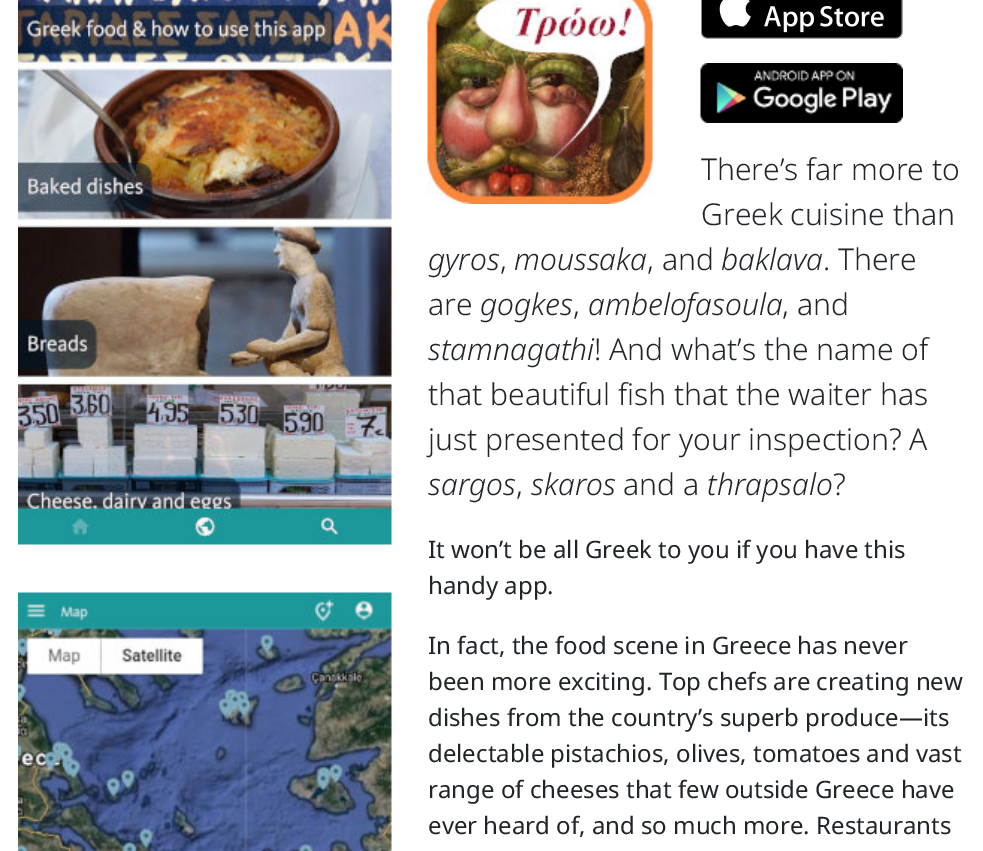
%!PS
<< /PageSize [983 851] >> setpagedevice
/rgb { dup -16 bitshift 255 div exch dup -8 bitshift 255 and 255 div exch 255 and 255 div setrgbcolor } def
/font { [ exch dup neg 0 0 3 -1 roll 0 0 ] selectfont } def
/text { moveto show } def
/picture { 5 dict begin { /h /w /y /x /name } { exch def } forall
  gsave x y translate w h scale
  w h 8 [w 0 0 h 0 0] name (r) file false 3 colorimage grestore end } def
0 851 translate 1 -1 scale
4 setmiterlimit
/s1 { /NotoSans-Light 30 font 16#212529 rgb } def
/s2 { /NotoSans-LightItalic 30 font 16#212529 rgb } def
/s3 { /NotoSans-Regular 24 font 16#212529 rgb } def
16#FFFFFF rgb
0 0 983 851 rectfill
(pic1.raw) 18 0 374 545 picture
(pic2.raw) 18 592 374 259 picture
(pic3.raw) 427 0 226 204 picture
(pic4.raw) 701 0 202 39 picture
(pic5.raw) 700 63 203 60 picture
s1
(There’s far more to) 701 180 text
(Greek cuisine than) 701 225 text
s2
(gyros) 428 270 text
s1
(,) 500 270 text
s2
(moussaka) 514 270 text
s1
(, and) 647 270 text
s2
(baklava) 721 270 text
s1
(. There) 823 270 text
(are) 428 315 text
s2
(gogkes) 480 315 text
s1
(,) 573 315 text
s2
(ambelofasoula) 588 315 text
s1
(, and) 782 315 text
s2
(stamnagathi) 428 360 text
s1
(! And what’s the name of) 594 360 text
(that beautiful fish that the waiter has) 428 405 text
(just presented for your inspection? A) 428 450 text
s2
(sargos) 428 495 text
s1
(,) 516 495 text
s2
(skaros) 531 495 text
s1
(and a) 623 495 text
s2
(thrapsalo) 707 495 text
s1
(?) 833 495 text
s3
(It won’t be all Greek to you if you have this) 428 558 text
(handy app.) 428 594 text
(In fact, the food scene in Greece has never) 428 654 text
(been more exciting. Top chefs are creating new) 428 690 text
(dishes from the country’s superb produce—its) 428 726 text
(delectable pistachios, olives, tomatoes and vast) 428 762 text
(range of cheeses that few outside Greece have) 428 798 text
(ever heard of, and so much more. Restaurants) 428 834 text
showpage
